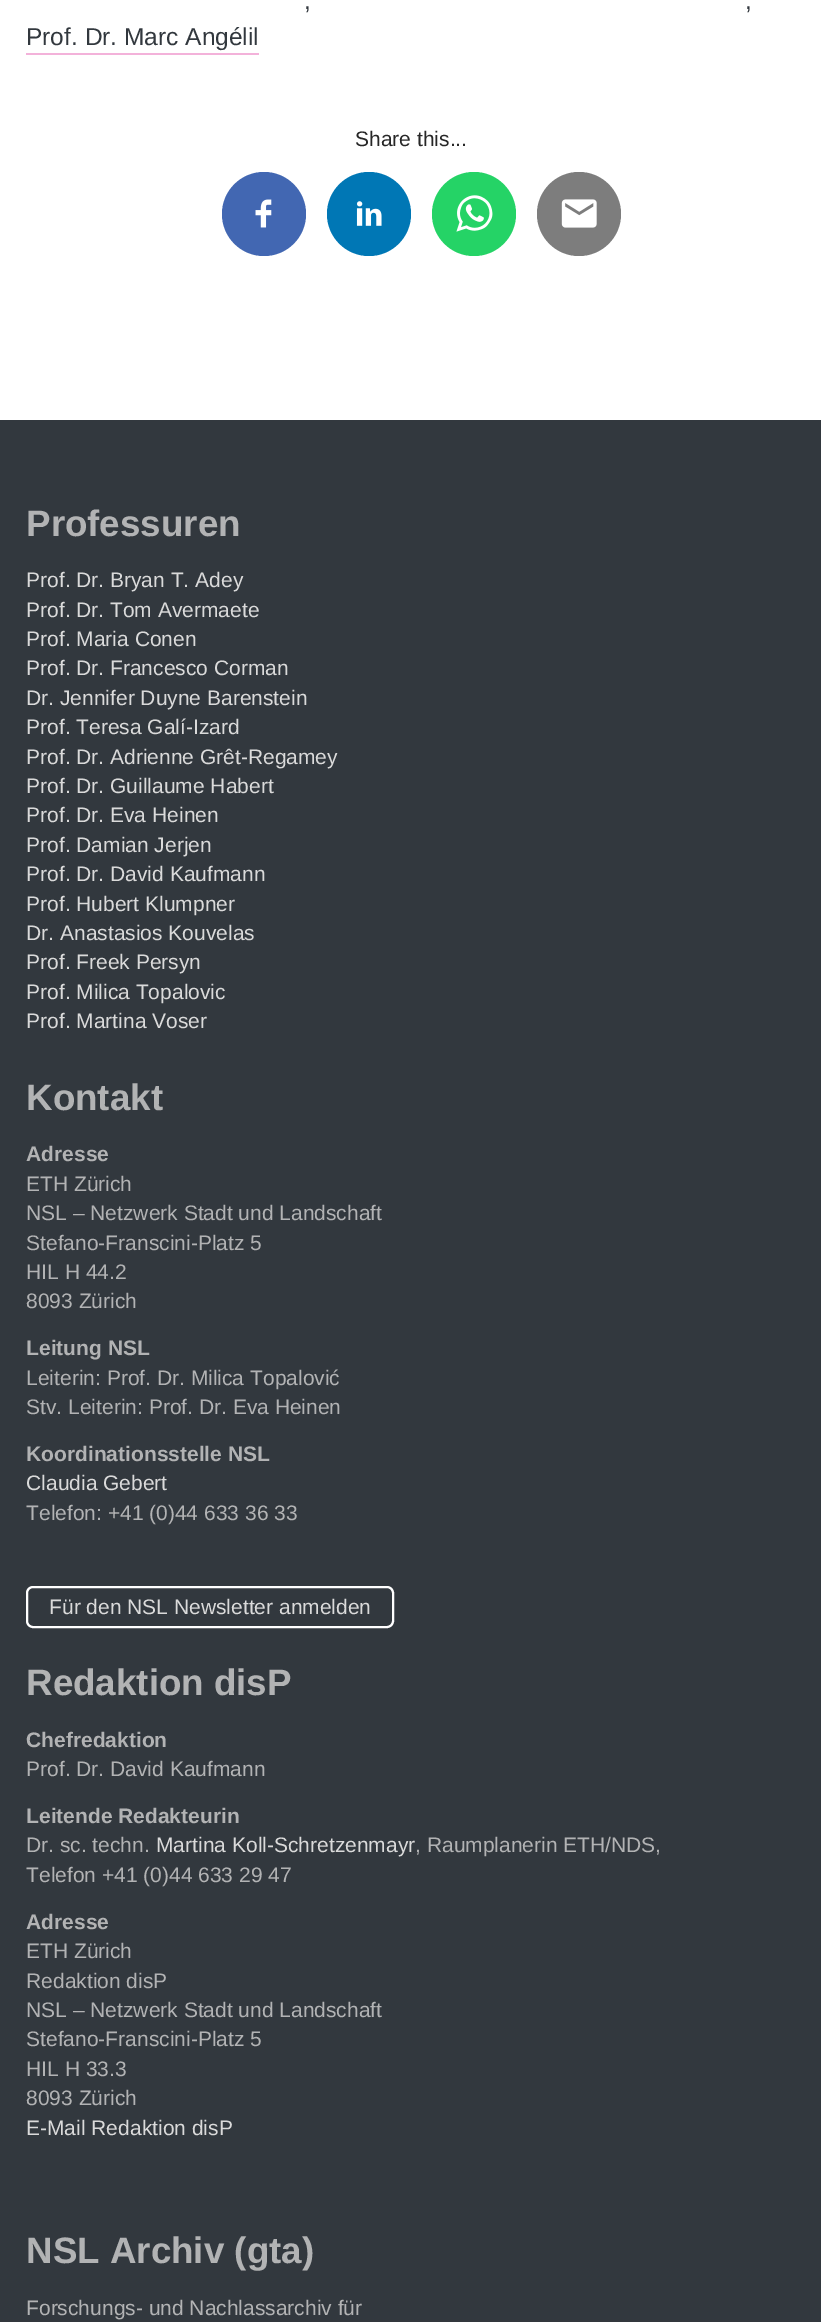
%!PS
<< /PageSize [821 2322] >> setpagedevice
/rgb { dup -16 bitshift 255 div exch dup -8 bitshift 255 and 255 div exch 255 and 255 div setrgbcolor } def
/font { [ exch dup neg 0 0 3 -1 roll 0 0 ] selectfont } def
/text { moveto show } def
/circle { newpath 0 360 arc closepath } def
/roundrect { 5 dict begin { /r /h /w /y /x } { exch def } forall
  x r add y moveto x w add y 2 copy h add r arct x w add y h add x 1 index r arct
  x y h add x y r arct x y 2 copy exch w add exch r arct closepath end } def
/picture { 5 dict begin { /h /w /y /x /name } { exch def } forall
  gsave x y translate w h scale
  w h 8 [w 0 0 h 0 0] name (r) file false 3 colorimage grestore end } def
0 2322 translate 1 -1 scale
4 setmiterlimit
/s1 { /LiberationSans-Regular 24.5 font 16#32383E rgb } def
/s2 { /LiberationSans-Regular 21 font 16#272727 rgb } def
/s3 { /LiberationSans-Bold 36.75 font 16#B2B3B4 rgb } def
/s4 { /LiberationSans-Regular 21 font 16#DADADA rgb } def
/s5 { /LiberationSans-Bold 21 font 16#B2B3B4 rgb } def
/s6 { /LiberationSans-Regular 21 font 16#B2B3B4 rgb } def
16#FFFFFF rgb
0 0 821 2322 rectfill
s1
(,) 304 9 text
(,) 745 9 text
(Prof. Dr. Marc Angélil) 26 45 text
16#F3B2DA rgb
26 53 233 2 rectfill
s2
(Share this...) 355 146 text
16#4267B2 rgb
264 214 42 circle fill
(pic1.raw) 255 199 17 29 picture
16#0077B5 rgb
369 214 42 circle fill
(pic2.raw) 356 201 26 25 picture
16#25D366 rgb
474 214 42 circle fill
(pic3.raw) 456 195 37 37 picture
16#7D7D7D rgb
579 214 42 circle fill
(pic4.raw) 561 199 36 29 picture
16#32383E rgb
0 420 821 1902 rectfill
s3
(Professuren) 26 536 text
s4
(Prof. Dr. Bryan T. Adey) 26 587 text
(Prof. Dr. Tom Avermaete) 26 617 text
(Prof. Maria Conen) 26 646 text
(Prof. Dr. Francesco Corman) 26 675 text
(Dr. Jennifer Duyne Barenstein) 26 705 text
(Prof. Teresa Galí-Izard) 26 734 text
(Prof. Dr. Adrienne Grêt-Regamey) 26 764 text
(Prof. Dr. Guillaume Habert) 26 793 text
(Prof. Dr. Eva Heinen) 26 822 text
(Prof. Damian Jerjen) 26 852 text
(Prof. Dr. David Kaufmann) 26 881 text
(Prof. Hubert Klumpner) 26 911 text
(Dr. Anastasios Kouvelas) 26 940 text
(Prof. Freek Persyn) 26 969 text
(Prof. Milica Topalovic) 26 999 text
(Prof. Martina Voser) 26 1028 text
s3
(Kontakt) 26 1110 text
s5
(Adresse) 26 1161 text
s6
(ETH Zürich) 26 1191 text
(NSL – Netzwerk Stadt und Landschaft) 26 1220 text
(Stefano-Franscini-Platz 5) 26 1250 text
(HIL H 44.2) 26 1279 text
(8093 Zürich) 26 1308 text
s5
(Leitung NSL) 26 1355 text
s6
(Leiterin: Prof. Dr. Milica Topalović) 26 1385 text
(Stv. Leiterin: Prof. Dr. Eva Heinen) 26 1414 text
s5
(Koordinationsstelle NSL) 26 1461 text
s4
(Claudia Gebert) 26 1490 text
s6
(Telefon: +41 \(0\)44 633 36 33) 26 1520 text
16#FFFFFF rgb
2 setlinewidth
27 1587 366 40 6 roundrect stroke
s4
(Für den NSL Newsletter anmelden) 49 1614 text
s3
(Redaktion disP) 26 1695 text
s5
(Chefredaktion) 26 1747 text
s6
(Prof. Dr. David Kaufmann) 26 1776 text
s5
(Leitende Redakteurin) 26 1823 text
s6
(Dr. sc. techn.) 26 1852 text
s4
(Martina Koll-Schretzenmayr) 156 1852 text
s6
(, Raumplanerin ETH/NDS,) 415 1852 text
(Telefon +41 \(0\)44 633 29 47) 26 1882 text
s5
(Adresse) 26 1929 text
s6
(ETH Zürich) 26 1958 text
(Redaktion disP) 26 1988 text
(NSL – Netzwerk Stadt und Landschaft) 26 2017 text
(Stefano-Franscini-Platz 5) 26 2046 text
(HIL H 33.3) 26 2076 text
(8093 Zürich) 26 2105 text
s4
(E-Mail Redaktion disP) 26 2135 text
s3
(NSL Archiv \(gta\)) 26 2263 text
s6
(Forschungs- und Nachlassarchiv für) 26 2315 text
showpage
